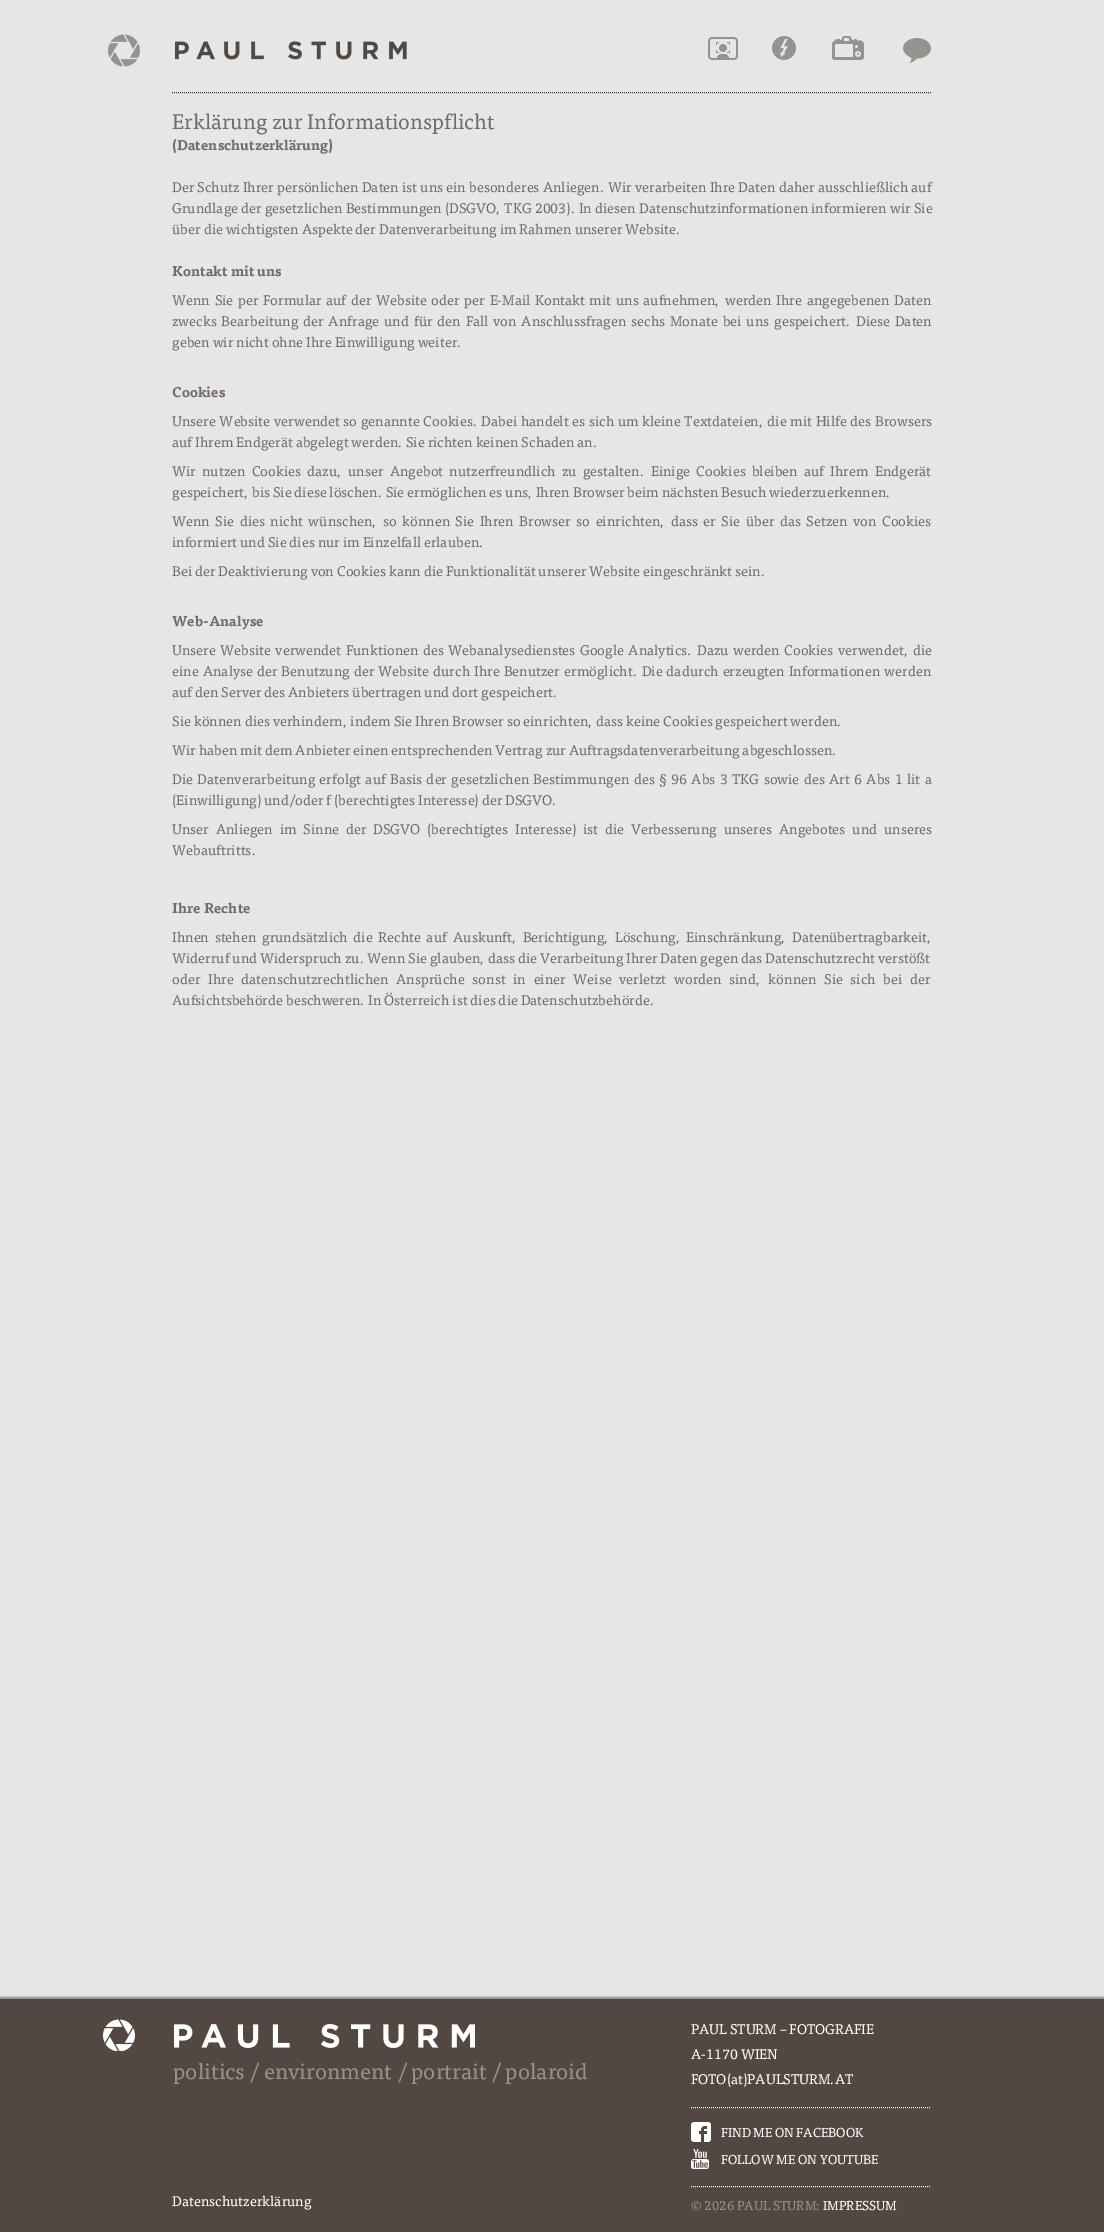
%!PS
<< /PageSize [1104 2232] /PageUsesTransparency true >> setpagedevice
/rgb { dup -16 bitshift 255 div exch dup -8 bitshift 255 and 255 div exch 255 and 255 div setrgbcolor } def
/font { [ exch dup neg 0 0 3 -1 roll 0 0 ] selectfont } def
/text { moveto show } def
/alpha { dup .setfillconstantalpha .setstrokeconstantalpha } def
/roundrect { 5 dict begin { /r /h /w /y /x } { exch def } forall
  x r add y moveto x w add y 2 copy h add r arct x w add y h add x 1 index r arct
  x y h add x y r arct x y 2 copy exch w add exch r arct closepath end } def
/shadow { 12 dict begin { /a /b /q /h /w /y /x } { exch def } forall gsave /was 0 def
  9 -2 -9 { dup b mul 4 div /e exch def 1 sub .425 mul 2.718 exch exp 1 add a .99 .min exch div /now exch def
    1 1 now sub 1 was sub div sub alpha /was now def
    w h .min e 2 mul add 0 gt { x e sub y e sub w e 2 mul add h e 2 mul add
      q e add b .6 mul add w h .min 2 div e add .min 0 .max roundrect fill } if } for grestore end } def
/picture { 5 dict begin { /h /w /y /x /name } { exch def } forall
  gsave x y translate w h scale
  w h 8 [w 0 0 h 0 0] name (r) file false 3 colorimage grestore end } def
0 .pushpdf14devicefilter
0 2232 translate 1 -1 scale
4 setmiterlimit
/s1 { /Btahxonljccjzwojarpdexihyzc-Regular 21.3 font 16#756C67 rgb } def
/s2 { /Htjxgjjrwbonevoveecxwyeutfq-Bold 14 font 16#756C67 rgb } def
/s3 { /Btahxonljccjzwojarpdexihyzc-Regular 14 font 16#756C67 rgb } def
/s4 { /Btahxonljccjzwojarpdexihyzc-Italic 14 font 16#756C67 rgb } def
/s5 { /Btahxonljccjzwojarpdexihyzc-Regular 22 font 16#97908C rgb } def
/s6 { /Btahxonljccjzwojarpdexihyzc-Regular 14 font 16#FFFFFF rgb } def
/s7 { /Btahxonljccjzwojarpdexihyzc-Regular 13 font 16#FFFFFF rgb } def
/s8 { /Btahxonljccjzwojarpdexihyzc-Regular 13 font 16#97908C rgb } def
16#E6E6E6 rgb
0 0 1104 2232 rectfill
16#333333 rgb
[1 1] 0 setdash
172 92.5 moveto 932 92.5 lineto stroke
(pic1.raw) 108 34 299 33 picture
(pic2.raw) 708 37 30 23 picture
(pic3.raw) 772 36 24 24 picture
(pic4.raw) 832 36 32 24 picture
(pic5.raw) 903 38 28 25 picture
s1
(Erklärung zur Informationspflicht) 172 129 text
s2
(\(Datenschutzerklärung\)) 172 150 text
/Btahxonljccjzwojarpdexihyzc-Regular 14 font
172 192 moveto 0.25 0 32 (Der Schutz Ihrer persönlichen Daten ist uns ein besonderes Anliegen. Wir verarbeiten Ihre Daten daher ausschließlich auf) widthshow
172 213 moveto 0.25 0 32 (Grundlage der gesetzlichen Bestimmungen \(DSGVO, TKG 2003\). In diesen Datenschutzinformationen informieren wir Sie) widthshow
(über die wichtigsten Aspekte der Datenverarbeitung im Rahmen unserer Website.) 172 234 text
s2
(Kontakt mit uns) 172 276 text
/Btahxonljccjzwojarpdexihyzc-Regular 14 font
172 305 moveto 1.75 0 32 (Wenn Sie per Formular auf der Website oder per E-Mail Kontakt mit uns aufnehmen, werden Ihre angegebenen Daten) widthshow
172 326 moveto 2 0 32 (zwecks Bearbeitung der Anfrage und für den Fall von Anschlussfragen sechs Monate bei uns gespeichert. Diese Daten) widthshow
(geben wir nicht ohne Ihre Einwilligung weiter.) 172 347 text
s2
(Cookies) 172 397 text
/Btahxonljccjzwojarpdexihyzc-Regular 14 font
172 426 moveto 0.75 0 32 (Unsere Website verwendet so genannte Cookies. Dabei handelt es sich um kleine Textdateien, die mit Hilfe des Browsers) widthshow
(auf Ihrem Endgerät abgelegt werden. Sie richten keinen Schaden an.) 172 447 text
172 476 moveto 3.25 0 32 (Wir nutzen Cookies dazu, unser Angebot nutzerfreundlich zu gestalten. Einige Cookies bleiben auf Ihrem Endgerät) widthshow
(gespeichert, bis Sie diese löschen. Sie ermöglichen es uns, Ihren Browser beim nächsten Besuch wiederzuerkennen.) 172 497 text
172 526 moveto 2.6 0 32 (Wenn Sie dies nicht wünschen, so können Sie Ihren Browser so einrichten, dass er Sie über das Setzen von Cookies) widthshow
(informiert und Sie dies nur im Einzelfall erlauben.) 172 547 text
(Bei der Deaktivierung von Cookies kann die Funktionalität unserer Website eingeschränkt sein.) 172 576 text
s2
(Web-Analyse) 172 626 text
/Btahxonljccjzwojarpdexihyzc-Regular 14 font
172 655 moveto 1.5 0 32 (Unsere Website verwendet Funktionen des Webanalysedienstes Google Analytics) widthshow
s4
(.) 687 655 text
/Btahxonljccjzwojarpdexihyzc-Regular 14 font
697 655 moveto 1.5 0 32 (Dazu werden Cookies verwendet, die) widthshow
172 676 moveto 1.1 0 32 (eine Analyse der Benutzung der Website durch Ihre Benutzer ermöglicht. Die dadurch erzeugten Informationen werden) widthshow
(auf den Server des Anbieters übertragen und dort gespeichert.) 172 697 text
(Sie können dies verhindern, indem Sie Ihren Browser so einrichten, dass keine Cookies gespeichert werden.) 172 726 text
(Wir haben mit dem Anbieter einen entsprechenden Vertrag zur Auftragsdatenverarbeitung abgeschlossen.) 172 755 text
172 784 moveto 1.45 0 32 (Die Datenverarbeitung erfolgt auf Basis der gesetzlichen Bestimmungen des § 96 Abs 3 TKG sowie des Art 6 Abs 1 lit a) widthshow
(\(Einwilligung\) und/oder f \(berechtigtes Interesse\) der DSGVO.) 172 805 text
172 834 moveto 3.9 0 32 (Unser Anliegen im Sinne der DSGVO \(berechtigtes Interesse\) ist die Verbesserung unseres Angebotes und unseres) widthshow
(Webauftritts.) 172 855 text
s2
(Ihre Rechte) 172 913 text
/Btahxonljccjzwojarpdexihyzc-Regular 14 font
172 942 moveto 2.75 0 32 (Ihnen stehen grundsätzlich die Rechte auf) widthshow
453 942 moveto 2.75 0 32 (Auskunft, Berichtigung, Löschung, Einschränkung, Datenübertragbarkeit,) widthshow
(Widerruf und Widerspruch zu. Wenn Sie glauben, dass die Verarbeitung Ihrer Daten gegen das Datenschutzrecht verstößt) 172 963 text
172 984 moveto 4.75 0 32 (oder Ihre datenschutzrechtlichen Ansprüche sonst in einer Weise verletzt worden sind, können Sie sich bei der) widthshow
(Aufsichtsbehörde beschweren. In Österreich ist dies die Datenschutzbehörde.) 172 1005 text
16#888888 rgb
-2 1997 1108 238 0 1 1 shadow
16#534741 rgb
0 1999 1104 233 rectfill
(pic6.raw) 103 2019 372 32 picture
s5
(politics / environment / portrait / polaroid) 173 2079 text
16#FFFFFF rgb
691 2107.5 moveto 931 2107.5 lineto stroke
s6
(PAUL STURM – FOTOGRAFIE) 691 2034 text
(A-1170 WIEN) 691 2059 text
(FOTO\(at\)PAULSTURM.AT) 691 2084 text
691 2186.5 moveto 931 2186.5 lineto stroke
(pic7.raw) 691 2122 20 20 picture
s7
(FIND ME ON FACEBOOK) 721 2137 text
(pic8.raw) 691 2149 18 20 picture
(FOLLOW ME ON YOUTUBE) 721 2164 text
s8
(© 2026 PAUL STURM:) 691 2210 text
s7
(IMPRESSUM) 823 2210 text
s6
(Datenschutzerklärung) 172 2206 text
.poppdf14devicefilter showpage
